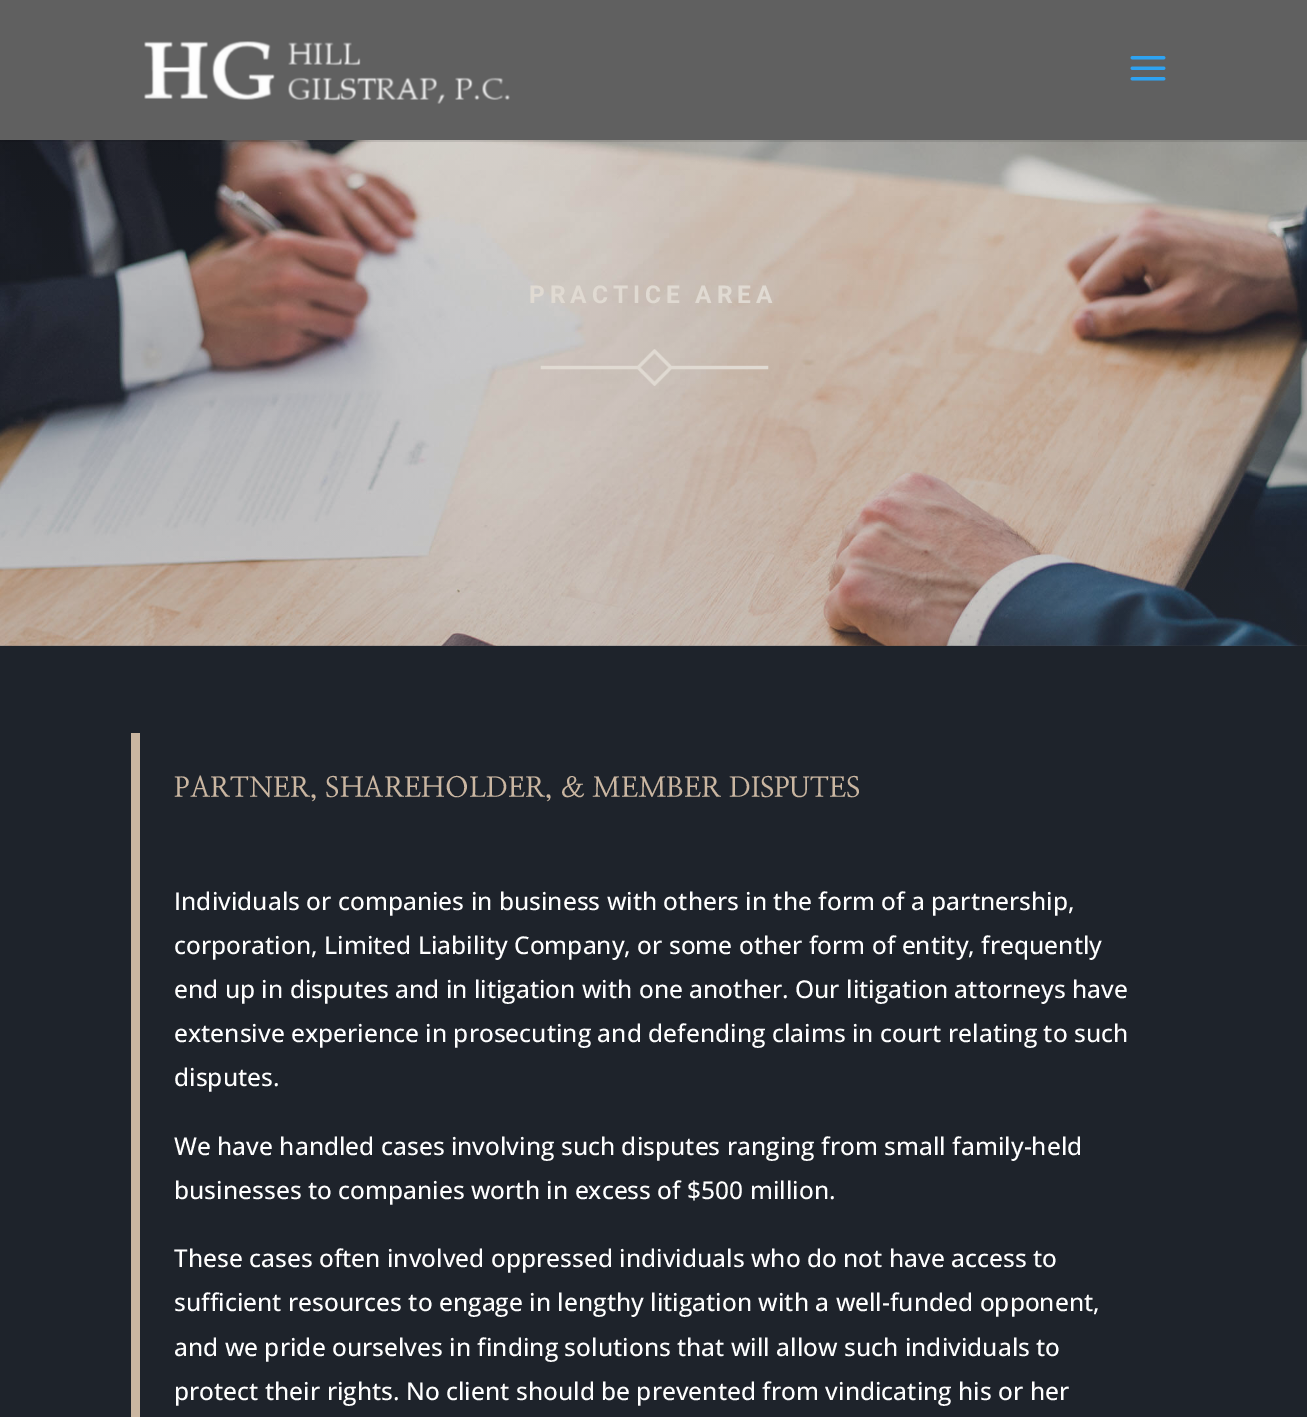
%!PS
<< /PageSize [1307 1417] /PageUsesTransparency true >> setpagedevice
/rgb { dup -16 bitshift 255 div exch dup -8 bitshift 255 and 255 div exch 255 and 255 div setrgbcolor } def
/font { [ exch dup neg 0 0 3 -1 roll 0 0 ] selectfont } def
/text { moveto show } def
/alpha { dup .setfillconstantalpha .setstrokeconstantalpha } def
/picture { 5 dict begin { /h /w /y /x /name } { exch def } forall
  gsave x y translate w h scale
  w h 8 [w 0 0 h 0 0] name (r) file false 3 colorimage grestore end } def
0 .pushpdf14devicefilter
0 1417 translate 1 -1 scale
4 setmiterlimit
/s1 { /NanumMyeongjo-Bold 28 font 16#CAB6A1 rgb } def
/s2 { /OpenSans-Medium 24.5 font 16#FFFFFF rgb } def
16#FFFFFF rgb
0 0 1307 1417 rectfill
(pic3.raw) 0 140 1307 506 picture
0.1 alpha
16#000000 rgb
0 140 1307 2 rectfill
1 alpha
16#606060 rgb
0 0 1307 140 rectfill
(pic1.raw) 144 41 366 63 picture
(pic2.raw) 1130 56 36 25 picture
/Roboto-Bold 24.5 font
16#E0DAD2 rgb
529 303 moveto 4.9 0 (PRACTICE AREA) ashow
(pic4.raw) 540 349 229 37 picture
16#1E232B rgb
0 646 1307 771 rectfill
16#CAB6A1 rgb
131 733 9 684 rectfill
s1
(PARTNER, SHAREHOLDER, & MEMBER DISPUTES) 174 797 text
s2
(Individuals or companies in business with others in the form of a partnership,) 174 910 text
(corporation, Limited Liability Company, or some other form of entity, frequently) 174 954 text
(end up in disputes and in litigation with one another. Our litigation attorneys have) 174 998 text
(extensive experience in prosecuting and defending claims in court relating to such) 174 1042 text
(disputes.) 174 1086 text
(We have handled cases involving such disputes ranging from small family-held) 174 1155 text
(businesses to companies worth in excess of $500 million.) 174 1199 text
(These cases often involved oppressed individuals who do not have access to) 174 1267 text
(sufficient resources to engage in lengthy litigation with a well-funded opponent,) 174 1311 text
(and we pride ourselves in finding solutions that will allow such individuals to) 174 1356 text
(protect their rights. No client should be prevented from vindicating his or her) 174 1400 text
.poppdf14devicefilter showpage
